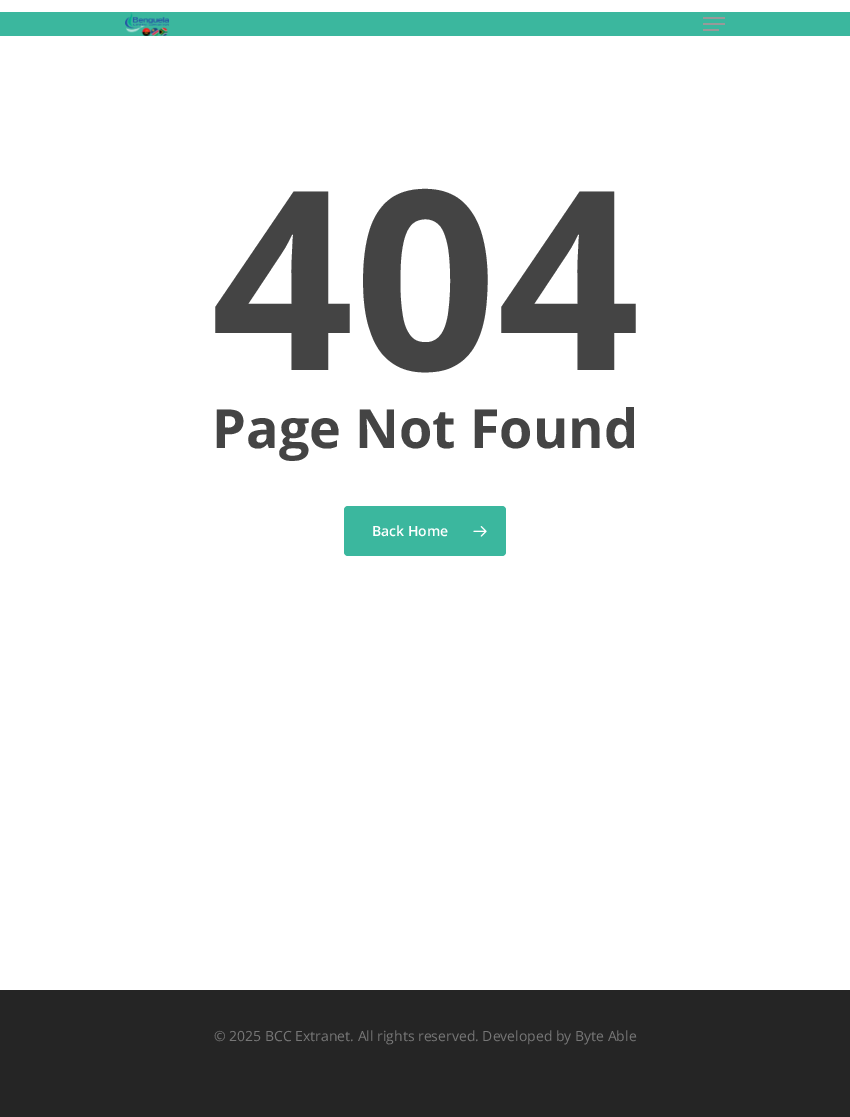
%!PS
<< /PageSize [850 1117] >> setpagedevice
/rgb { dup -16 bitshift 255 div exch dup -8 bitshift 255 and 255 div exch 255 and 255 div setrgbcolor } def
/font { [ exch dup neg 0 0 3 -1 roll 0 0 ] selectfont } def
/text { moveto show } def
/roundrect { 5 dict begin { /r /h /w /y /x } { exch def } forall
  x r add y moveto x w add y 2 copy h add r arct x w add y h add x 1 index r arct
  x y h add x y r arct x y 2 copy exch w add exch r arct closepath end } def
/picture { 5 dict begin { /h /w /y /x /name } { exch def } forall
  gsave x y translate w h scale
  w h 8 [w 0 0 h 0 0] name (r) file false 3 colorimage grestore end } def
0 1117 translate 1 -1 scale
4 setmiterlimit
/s1 { /OpenSans-Bold 250 font 16#444444 rgb } def
/s2 { /OpenSans-Bold 54 font 16#444444 rgb } def
/s3 { /OpenSans-SemiBold 14 font 16#FFFFFF rgb } def
/s4 { /OpenSans-Regular 14 font 16#777777 rgb } def
16#FFFFFF rgb
0 0 850 1117 rectfill
16#3BB79E rgb
0 12 850 24 rectfill
(pic1.raw) 125 12 44 24 picture
16#999999 rgb
703 17 22 2 rectfill
703 29 16 2 rectfill
703 23 22 2 rectfill
s1
(404) 211 370 text
s2
(Page Not Found) 212 448 text
16#3BB79E rgb
344 506 162 50 4 roundrect fill
s3
(Back Home) 372 536 text
(pic2.raw) 473 526 14 11 picture
16#252525 rgb
0 990 850 127 rectfill
s4
(© 2025 BCC Extranet. All rights reserved. Developed by Byte Able) 214 1041 text
showpage
